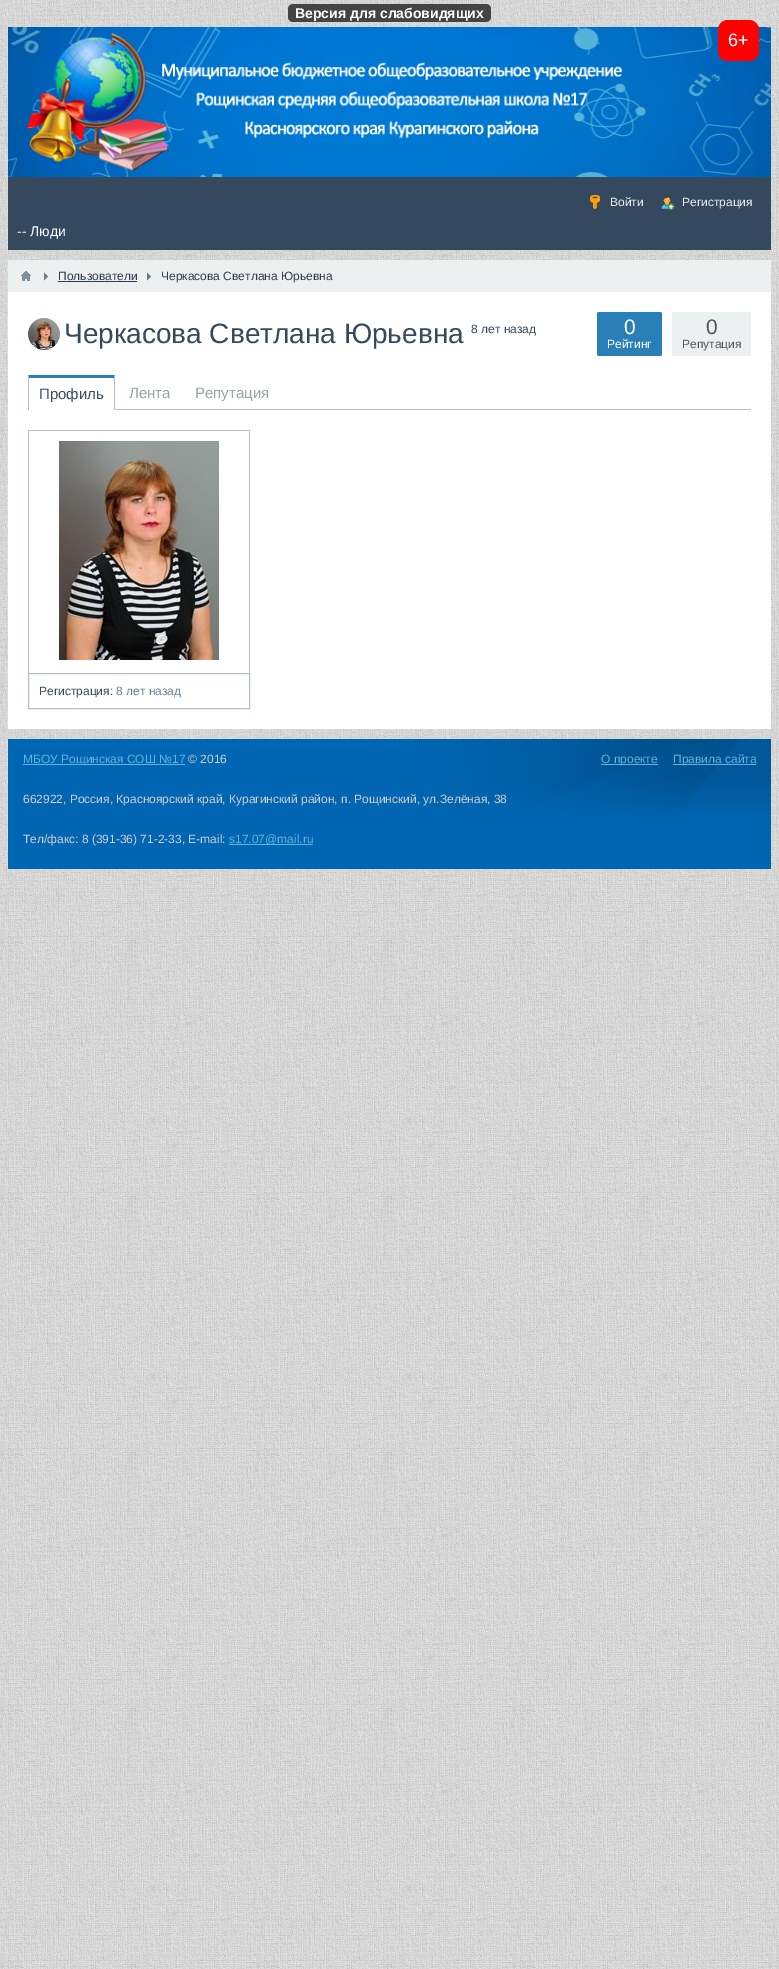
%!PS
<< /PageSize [779 1969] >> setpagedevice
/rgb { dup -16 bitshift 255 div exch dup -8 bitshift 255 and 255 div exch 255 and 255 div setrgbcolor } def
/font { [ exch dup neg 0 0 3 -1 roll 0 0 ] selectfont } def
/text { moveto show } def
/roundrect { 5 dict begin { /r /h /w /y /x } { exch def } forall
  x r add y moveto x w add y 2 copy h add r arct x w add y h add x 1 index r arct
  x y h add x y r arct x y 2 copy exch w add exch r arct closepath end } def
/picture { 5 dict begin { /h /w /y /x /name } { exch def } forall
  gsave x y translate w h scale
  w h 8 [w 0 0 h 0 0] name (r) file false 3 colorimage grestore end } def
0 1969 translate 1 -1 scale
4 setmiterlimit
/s1 { /LiberationSans-Bold 14 font 16#FFFFFF rgb } def
/s2 { /LiberationSans-Regular 18 font 16#FFFFFF rgb } def
/s3 { /LiberationSans-Regular 12 font 16#2C3E50 rgb } def
/s4 { /LiberationSans-Regular 28 font 16#34495E rgb } def
/s5 { /LiberationSans-Regular 12 font 16#34495E rgb } def
/s6 { /LiberationSans-Regular 21 font 16#FFFFFF rgb } def
/s7 { /LiberationSans-Regular 12 font 16#FFFFFF rgb } def
/s8 { /LiberationSans-Regular 21 font 16#555555 rgb } def
/s9 { /LiberationSans-Regular 12 font 16#555555 rgb } def
/s10 { /LiberationSans-Regular 15 font 16#34495E rgb } def
/s11 { /LiberationSans-Regular 15 font 16#95A5A6 rgb } def
/s12 { /LiberationSans-Regular 12 font 16#68809B rgb } def
/s13 { /LiberationSans-Regular 12 font 16#ECF0F1 rgb } def
/s14 { /LiberationSans-Regular 14 font 16#FFFFFF rgb } def
/s15 { /LiberationSans-Regular 12 font 16#62B3D9 rgb } def
/s16 { /LiberationSans-Regular 12 font 16#CECECE rgb } def
16#FFFFFF rgb
0 0 779 1969 rectfill
(pic1.raw) 0 0 779 1969 picture
16#444444 rgb
288 4 203 18 5 roundrect fill
s1
(Версия для слабовидящих) 295 18 text
(pic6.raw) 8 27 763 150 picture
16#FF0000 rgb
718 20 41 41 10 roundrect fill
s2
(6+) 728 46 text
8 292 763 437 rectfill
16#ECF0F1 rgb
8 260 763 32 rectfill
(pic2.raw) 21 271 10 10 picture
(pic3.raw) 44 272 4 9 picture
s3
(Пользователи) 58 280 text
58 281 79 1 rectfill
(pic3.raw) 147 272 4 9 picture
(Черкасова Светлана Юрьевна) 161 280 text
(pic4.raw) 28 318 32 32 picture
s4
(Черкасова Светлана Юрьевна) 64 343 text
s5
(8 лет назад) 471 333 text
16#2980B9 rgb
597 312 65 44 2 roundrect fill
s6
(0) 624 334 text
s7
(Рейтинг) 607 348 text
16#ECF0F1 rgb
672 312 79 44 2 roundrect fill
s8
(0) 706 334 text
s9
(Репутация) 682 348 text
16#B3C2C9 rgb
115 409 636 1 rectfill
16#2980B9 rgb
28 375 moveto 115 375 lineto 114 378 lineto 29 378 lineto closepath fill
16#B3C2C9 rgb
115 375 moveto 115 410 lineto 114 410 lineto 114 378 lineto closepath fill
28 410 moveto 28 375 lineto 29 378 lineto 29 410 lineto closepath fill
s10
(Профиль) 39 399 text
s11
(Лента) 129 398 text
(Репутация) 195 398 text
16#B3C2C9 rgb
28 430 222 1 rectfill
249 430 1 243 rectfill
28 430 1 243 rectfill
(pic5.raw) 59 441 160 219 picture
28.5 673.5 221 35 rectstroke
s5
(Регистрация:) 39 695 text
s12
(8 лет назад) 116 695 text
(pic7.raw) 26 32 596 140 picture
16#34495E rgb
8 177 763 73 rectfill
(pic8.raw) 590 195 10 14 picture
s13
(Войти) 610 206 text
(pic9.raw) 661 195 14 15 picture
(Регистрация) 682 206 text
s14
(-- Люди) 17 236 text
(pic10.raw) 8 739 763 130 picture
16#62B3D9 rgb
23 764 162 1 rectfill
s15
(МБОУ Рощинская СОШ №17) 23 763 text
s16
(© 2016) 188 763 text
16#62B3D9 rgb
601 764 57 1 rectfill
(О проекте) 601 763 text
673 764 83 1 rectfill
(Правила сайта) 673 763 text
s16
(662922, Россия, Красноярский край, Курагинский район, п. Рощинский, ул.Зелёная, 38) 23 803 text
(Тел/факс: 8 \(391-36\) 71-2-33, E-mail:) 23 843 text
16#62B3D9 rgb
229 844 84 1 rectfill
(s17.07@mail.ru) 229 843 text
showpage
